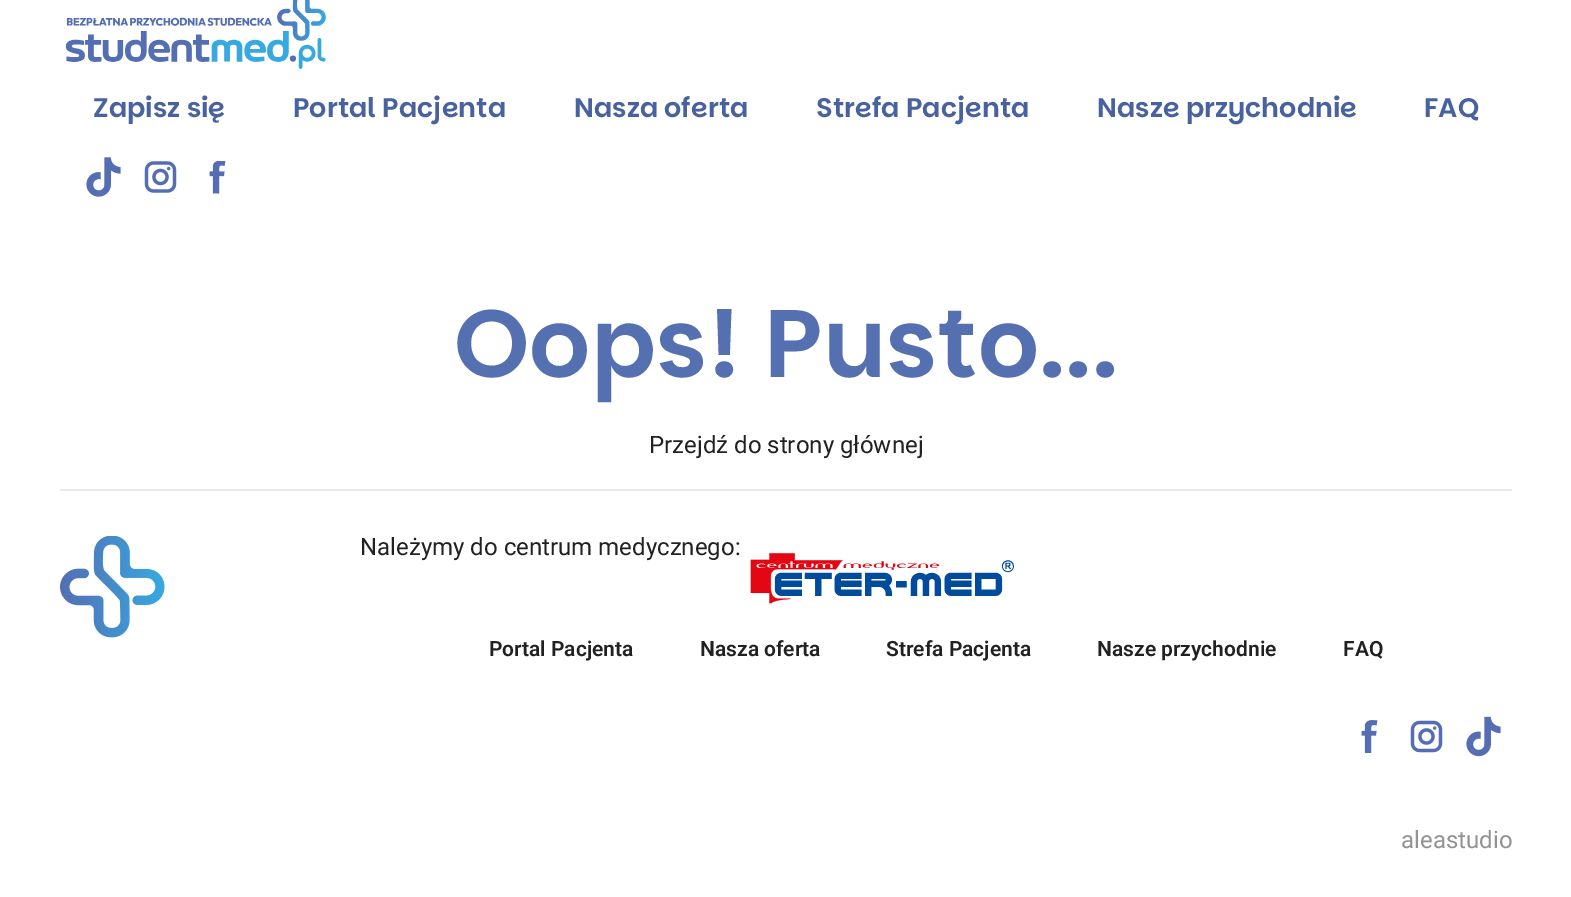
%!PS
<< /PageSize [1571 897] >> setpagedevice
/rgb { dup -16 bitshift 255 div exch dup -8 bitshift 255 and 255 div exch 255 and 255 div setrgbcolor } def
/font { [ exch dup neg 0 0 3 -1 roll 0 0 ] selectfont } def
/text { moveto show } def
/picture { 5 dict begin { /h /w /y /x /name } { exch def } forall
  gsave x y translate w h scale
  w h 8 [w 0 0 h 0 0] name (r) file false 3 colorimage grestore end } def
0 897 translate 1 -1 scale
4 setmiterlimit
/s1 { /Parkinsans-SemiBold 27 font 16#48619F rgb } def
/s2 { /Parkinsans-SemiBold 96 font 16#5570B1 rgb } def
/s3 { /Roboto-Regular 24 font 16#212121 rgb } def
/s4 { /Roboto-SemiBold 21 font 16#212121 rgb } def
/s5 { /Roboto-Regular 24 font 16#929292 rgb } def
16#FFFFFF rgb
0 0 1571 897 rectfill
(pic1.raw) 65 0 261 69 picture
s1
(Zapisz się) 93 117 text
(Portal Pacjenta) 293 117 text
(Nasza oferta) 574 117 text
(Strefa Pacjenta) 816 117 text
(Nasze przychodnie) 1097 117 text
(FAQ) 1424 117 text
(pic2.raw) 86 157 35 40 picture
(pic3.raw) 144 161 33 32 picture
(pic4.raw) 209 161 17 33 picture
s2
(Oops! Pusto...) 454 377 text
s3
(Przejdź do strony głównej) 649 453 text
16#E9E9E9 rgb
60 489 1452 2 rectfill
(pic5.raw) 60 536 105 102 picture
s3
(Należymy do centrum medycznego:) 360 555 text
(pic6.raw) 750 552 264 52 picture
s4
(Portal Pacjenta) 489 656 text
(Nasza oferta) 700 656 text
(Strefa Pacjenta) 886 656 text
(Nasze przychodnie) 1097 656 text
(FAQ) 1343 656 text
(pic7.raw) 1361 720 17 33 picture
(pic8.raw) 1410 720 33 33 picture
(pic9.raw) 1466 716 35 41 picture
s5
(aleastudio) 1401 848 text
showpage
